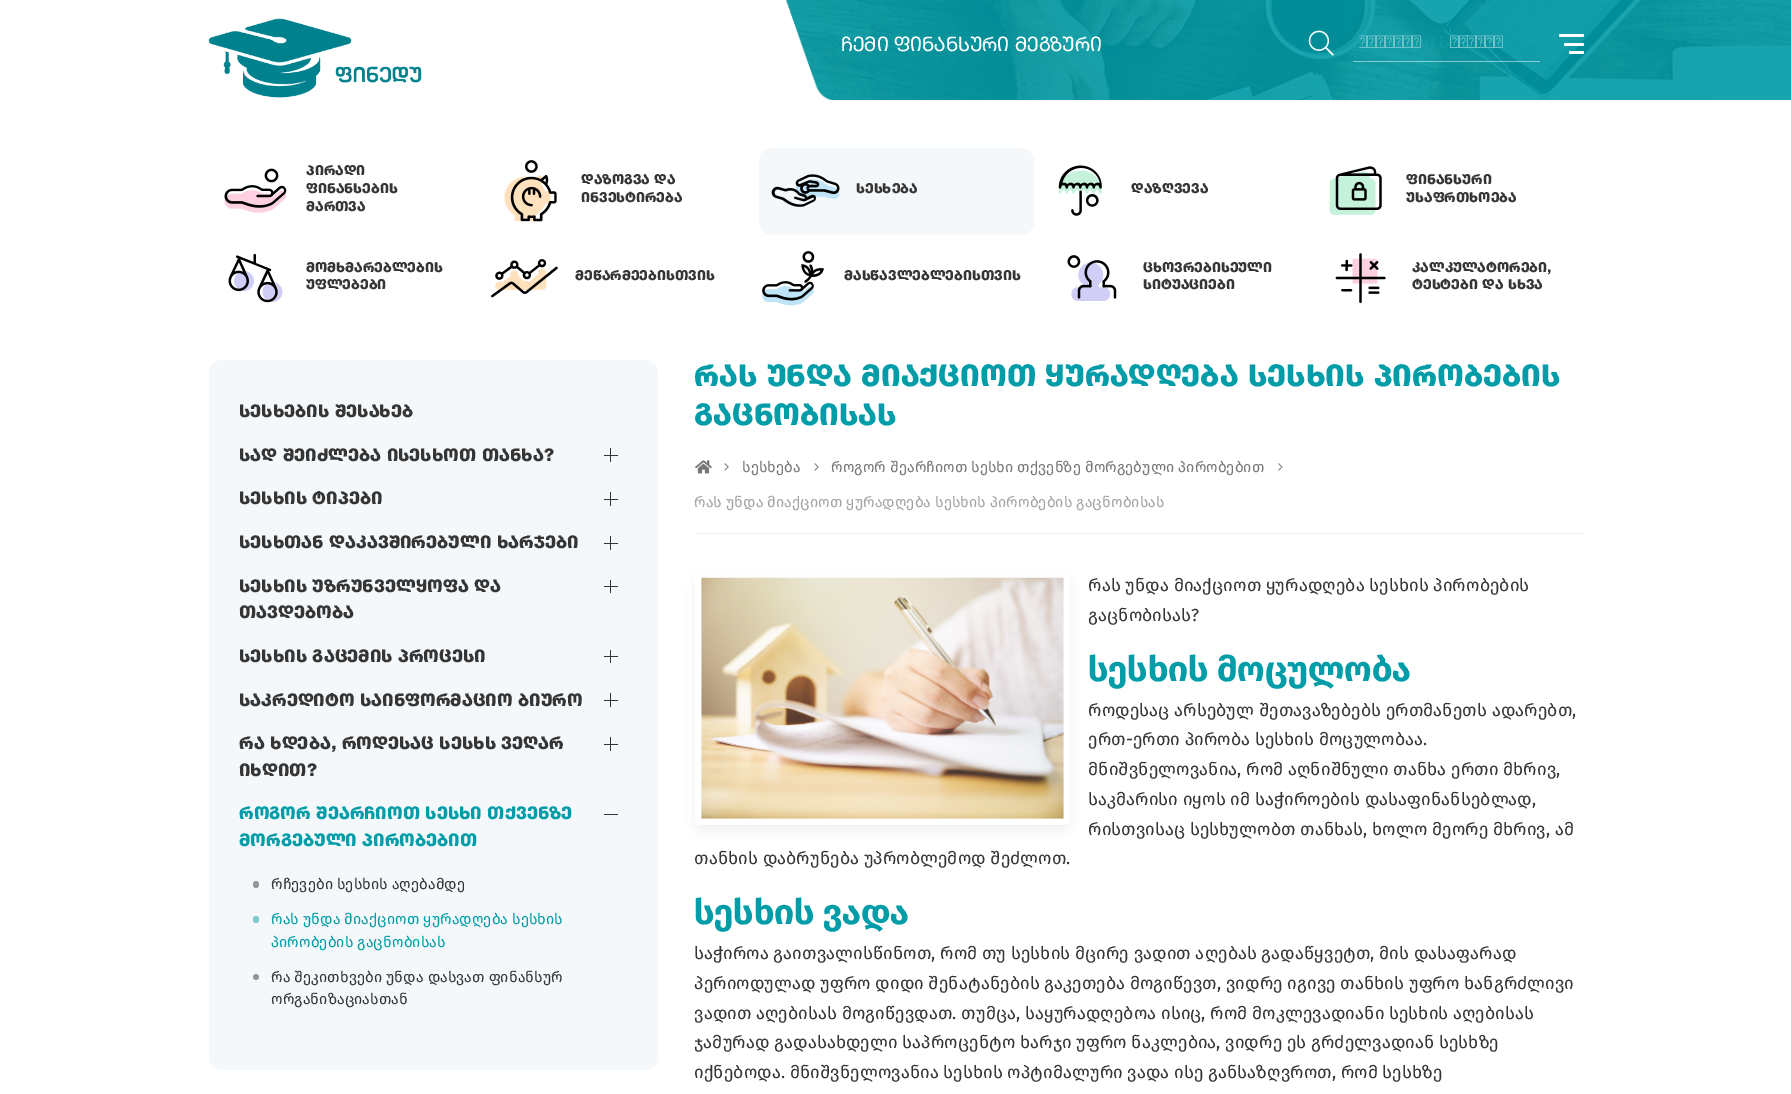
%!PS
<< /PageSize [1791 1094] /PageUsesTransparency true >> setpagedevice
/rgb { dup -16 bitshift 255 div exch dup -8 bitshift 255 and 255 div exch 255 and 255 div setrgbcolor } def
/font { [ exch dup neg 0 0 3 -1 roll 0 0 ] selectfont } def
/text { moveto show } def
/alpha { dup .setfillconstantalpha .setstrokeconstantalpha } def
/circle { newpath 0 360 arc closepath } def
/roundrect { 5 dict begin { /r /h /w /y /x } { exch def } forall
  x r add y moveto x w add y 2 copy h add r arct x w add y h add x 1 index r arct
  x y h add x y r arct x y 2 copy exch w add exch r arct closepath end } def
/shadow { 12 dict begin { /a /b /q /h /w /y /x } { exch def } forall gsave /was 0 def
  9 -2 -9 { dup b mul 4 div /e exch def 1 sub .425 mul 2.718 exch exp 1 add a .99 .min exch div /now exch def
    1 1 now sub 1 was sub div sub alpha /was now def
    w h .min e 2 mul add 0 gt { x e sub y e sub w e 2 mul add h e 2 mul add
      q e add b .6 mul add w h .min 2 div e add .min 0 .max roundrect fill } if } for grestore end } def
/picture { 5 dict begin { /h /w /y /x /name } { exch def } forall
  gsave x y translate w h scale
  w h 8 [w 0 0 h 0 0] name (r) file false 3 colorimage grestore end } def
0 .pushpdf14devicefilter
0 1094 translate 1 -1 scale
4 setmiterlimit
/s1 { /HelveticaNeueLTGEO-Regular 20 font 16#FFFFFF rgb } def
/s2 { /HelveticaNeueLTGEO-Black 13.75 font 16#353535 rgb } def
/s3 { /HelveticaNeueLTGEO-Black 17.5 font 16#353535 rgb } def
/s4 { /HelveticaNeueLTGEO-Black 17.5 font 16#009CA8 rgb } def
/s5 { /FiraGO-Regular 15 font 16#353535 rgb } def
/s6 { /FiraGO-Regular 15 font 16#009CA8 rgb } def
/s7 { /HelveticaNeueLTGEO-Black 30 font 16#009CA8 rgb } def
/s8 { /FiraGO-Regular 15 font 16#777777 rgb } def
/s9 { /FiraGO-Regular 15 font 16#A3A3A3 rgb } def
/s10 { /FiraGO-Regular 17.5 font 16#353535 rgb } def
/s11 { /FiraGO-Bold 35 font 16#009CA8 rgb } def
16#FFFFFF rgb
0 0 1791 1094 rectfill
(pic2.raw) 785 0 1006 100 picture
(pic1.raw) 716 0 116 100 picture
(pic3.raw) 208 18 214 80 picture
s1
(ჩემი ფინანსური მეგზური) 841 51 text
(pic4.raw) 1308 30 26 26 picture
0.5 alpha
1353 61 187 1 rectfill
gsave
1359 33 170 21 rectclip
/HelveticaNeueLTGEO-Regular 17.5 font
1 alpha
16#6FC3C8 rgb
1358 48 moveto 24 0 32 (ᲡᲐᲫᲘᲔᲑᲝ ᲡᲘᲢᲧᲕᲐ) widthshow
grestore
1 alpha
1559 34 25 3 1.5 roundrect fill
1564 43 20 3 1.5 roundrect fill
1569 51 15 3 1.5 roundrect fill
(pic5.raw) 224 168 63 45 picture
s2
(პირადი) 306 175 text
(ფინანსების) 306 193 text
(მართვა) 306 211 text
(pic6.raw) 504 160 53 62 picture
(დაზოგვა და) 581 184 text
(ინვესტირება) 581 202 text
16#F5F8FA rgb
759 148 275 87 13 roundrect fill
(pic7.raw) 771 174 69 33 picture
s2
(სესხება) 856 193 text
(pic8.raw) 1058 165 44 51 picture
(დაზღვევა) 1131 193 text
(pic9.raw) 1329 166 53 49 picture
(ფინანსური) 1406 184 text
(უსაფრთხოება) 1406 202 text
(pic10.raw) 228 253 55 50 picture
(მომხმარებლების) 306 272 text
(უფლებები) 306 289 text
(pic11.raw) 491 259 67 39 picture
(მეწარმეებისთვის) 575 280 text
(pic12.raw) 762 251 62 55 picture
(მასწავლებლებისთვის) 844 280 text
(pic13.raw) 1067 255 50 46 picture
(ცხოვრებისეული) 1143 272 text
(სიტუაციები) 1143 289 text
(pic14.raw) 1335 253 51 51 picture
(კალკულატორები,) 1412 272 text
(ტესტები და სხვა) 1412 289 text
16#F5F8FA rgb
209 360 449 710 13 roundrect fill
s3
(სესხების შესახებ) 239 417 text
(სად შეიძლება ისესხოთ თანხა?) 239 461 text
610 448 1 14 rectfill
604 455 14 1 rectfill
(სესხის ტიპები) 239 504 text
610 492 1 14 rectfill
604 499 14 1 rectfill
(სესხთან დაკავშირებული ხარჯები) 239 548 text
610 536 1 14 rectfill
604 543 14 1 rectfill
(სესხის უზრუნველყოფა და) 239 592 text
(თავდებობა) 239 618 text
610 580 1 13 rectfill
604 586 14 1 rectfill
(სესხის გაცემის პროცესი) 239 662 text
610 650 1 13 rectfill
604 656 14 1 rectfill
(საკრედიტო საინფორმაციო ბიურო) 239 706 text
610 693 1 14 rectfill
604 700 14 1 rectfill
(რა ხდება, როდესაც სესხს ვეღარ) 239 749 text
(იხდით?) 239 776 text
610 737 1 14 rectfill
604 744 14 1 rectfill
s4
(როგორ შეარჩიოთ სესხი თქვენზე) 239 819 text
(მორგებული პირობებით) 239 846 text
16#353535 rgb
604 814 14 1 rectfill
16#959798 rgb
253 881 6 7 3 roundrect fill
s5
(რჩევები სესხის აღებამდე) 271 889 text
16#7BCAD1 rgb
253 916 6 7 3 roundrect fill
s6
(რას უნდა მიაქციოთ ყურადღება სესხის) 271 924 text
(პირობების გაცნობისას) 271 947 text
16#959798 rgb
256 977 3 circle fill
s5
(რა შეკითხვები უნდა დასვათ ფინანსურ) 271 982 text
(ორგანიზაციასთან) 271 1004 text
16#EEEEEE rgb
695 533 889 1 rectfill
s7
(რას უნდა მიაქციოთ ყურადღება სესხის პირობების) 694 386 text
(გაცნობისას) 694 425 text
(pic15.raw) 695 460 17 14 picture
(pic16.raw) 724 463 5 8 picture
s8
(სესხება) 742 472 text
(pic16.raw) 814 463 5 8 picture
(როგორ შეარჩიოთ სესხი თქვენზე მორგებული პირობებით) 831 472 text
(pic17.raw) 1278 463 5 8 picture
s9
(რას უნდა მიაქციოთ ყურადღება სესხის პირობების გაცნობისას) 694 507 text
16#000000 rgb
695 578 375 253 6 6 0.05 shadow
16#FFFFFF rgb
695 571 375 254 6 roundrect fill
(pic18.raw) 701 577 363 242 picture
s10
(რას უნდა მიაქციოთ ყურადღება სესხის პირობების) 1088 591 text
(გაცნობისას?) 1088 621 text
s11
(სესხის მოცულობა) 1088 681 text
s10
(როდესაც არსებულ შეთავაზებებს ერთმანეთს ადარებთ,) 1088 716 text
(ერთ-ერთი პირობა სესხის მოცულობაა.) 1088 745 text
(მნიშვნელოვანია, რომ აღნიშნული თანხა ერთი მხრივ,) 1088 775 text
(საკმარისი იყოს იმ საჭიროების დასაფინანსებლად,) 1088 805 text
(რისთვისაც სესხულობთ თანხას, ხოლო მეორე მხრივ, ამ) 1088 835 text
(თანხის დაბრუნება უპრობლემოდ შეძლოთ.) 694 864 text
s11
(სესხის ვადა) 694 924 text
s10
(საჭიროა გაითვალისწინოთ, რომ თუ სესხის მცირე ვადით აღებას გადაწყვეტთ, მის დასაფარად) 694 959 text
(პერიოდულად უფრო დიდი შენატანების გაკეთება მოგიწევთ, ვიდრე იგივე თანხის უფრო ხანგრძლივი) 694 989 text
(ვადით აღებისას მოგიწევდათ. თუმცა, საყურადღებოა ისიც, რომ მოკლევადიანი სესხის აღებისას) 694 1019 text
(ჯამურად გადასახდელი საპროცენტო ხარჯი უფრო ნაკლებია, ვიდრე ეს გრძელვადიან სესხზე) 694 1048 text
(იქნებოდა. მნიშვნელოვანია სესხის ოპტიმალური ვადა ისე განსაზღვროთ, რომ სესხზე) 694 1078 text
.poppdf14devicefilter showpage
